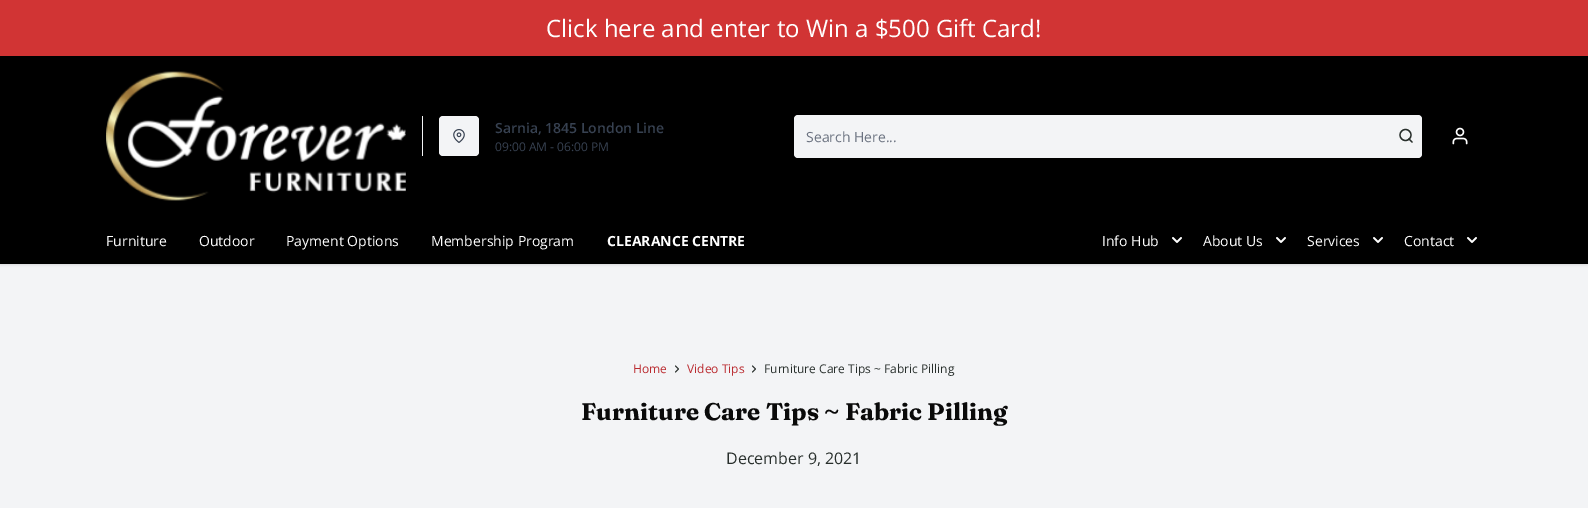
%!PS
<< /PageSize [1588 508] /PageUsesTransparency true >> setpagedevice
/rgb { dup -16 bitshift 255 div exch dup -8 bitshift 255 and 255 div exch 255 and 255 div setrgbcolor } def
/font { [ exch dup neg 0 0 3 -1 roll 0 0 ] selectfont } def
/text { moveto show } def
/alpha { dup .setfillconstantalpha .setstrokeconstantalpha } def
/circle { newpath 0 360 arc closepath } def
/roundrect { 5 dict begin { /r /h /w /y /x } { exch def } forall
  x r add y moveto x w add y 2 copy h add r arct x w add y h add x 1 index r arct
  x y h add x y r arct x y 2 copy exch w add exch r arct closepath end } def
/shadow { 12 dict begin { /a /b /q /h /w /y /x } { exch def } forall gsave /was 0 def
  9 -2 -9 { dup b mul 4 div /e exch def 1 sub .425 mul 2.718 exch exp 1 add a .99 .min exch div /now exch def
    1 1 now sub 1 was sub div sub alpha /was now def
    w h .min e 2 mul add 0 gt { x e sub y e sub w e 2 mul add h e 2 mul add
      q e add b .6 mul add w h .min 2 div e add .min 0 .max roundrect fill } if } for grestore end } def
/picture { 5 dict begin { /h /w /y /x /name } { exch def } forall
  gsave x y translate w h scale
  w h 8 [w 0 0 h 0 0] name (r) file false 3 colorimage grestore end } def
0 .pushpdf14devicefilter
0 508 translate 1 -1 scale
4 setmiterlimit
/s1 { /OpenSans-Regular 24 font 16#FFFFFF rgb } def
/s2 { /OpenSans-SemiBold 14 font 16#374151 rgb } def
/s3 { /OpenSans-Regular 12 font 16#374151 rgb } def
/s4 { /OpenSans-Regular 14 font 16#6B7280 rgb } def
/s5 { /OpenSans-Regular 14 font 16#FFFFFF rgb } def
/s6 { /OpenSans-Bold 14 font 16#FFFFFF rgb } def
/s7 { /OpenSans-Regular 12 font 16#BA2B30 rgb } def
/s8 { /OpenSans-Regular 12 font 16#282F2C rgb } def
/s9 { /Fraunces-Bold 24 font 16#0A0A0A rgb } def
/s10 { /OpenSans-Regular 16 font 16#282F2C rgb } def
16#F3F4F6 rgb
0 0 1588 508 rectfill
16#D13434 rgb
0 0 1588 56 rectfill
s1
(Click here and enter to Win a $500 Gift Card!) 546 37 text
16#000000 rgb
0 217 1588 48 0 1 0.05 shadow
0 217 1588 48 0 1.5 0.05 shadow
0 56 1588 208 rectfill
(pic1.raw) 106 71 300 130 picture
16#F3F4F6 rgb
422 116 1 40 rectfill
439 116 40 40 4 roundrect fill
(pic2.raw) 453 129 12 14 picture
s2
(Sarnia, 1845 London Line) 495 133 text
s3
(09:00 AM - 06:00 PM) 495 151 text
16#F3F4F6 rgb
794 115 628 43 4 roundrect fill
s4
(Search Here...) 806 142 text
16#282F2C rgb
1.3 setlinewidth
1405.5 135 5.5 circle stroke
1 setlinecap
1 setlinejoin
1412 142 moveto 1409 139 lineto stroke
(pic3.raw) 1452 127 16 18 picture
s5
(Furniture) 106 246 text
(Outdoor) 199 246 text
(Payment Options) 286 246 text
(Membership Program) 431 246 text
s6
(CLEARANCE CENTRE) 607 246 text
s5
(Info Hub) 1102 246 text
(pic4.raw) 1172 237 10 6 picture
(About Us) 1203 246 text
(pic4.raw) 1276 237 10 6 picture
(Services) 1307 246 text
(pic4.raw) 1373 237 10 6 picture
(Contact) 1404 246 text
(pic4.raw) 1467 237 10 6 picture
s7
(Home) 633 373 text
16#282F2C rgb
1 setlinewidth
675.5 372 moveto 678.5 369 lineto 675.5 366 lineto stroke
s7
(Video Tips) 687 373 text
16#282F2C rgb
752.5 372 moveto 755.5 369 lineto 752.5 366 lineto stroke
(Furniture Care Tips ~ Fabric Pilling) 764 373 text
s9
(Furniture Care Tips ~ Fabric Pilling) 581 420 text
s10
(December 9, 2021) 726 464 text
.poppdf14devicefilter showpage
